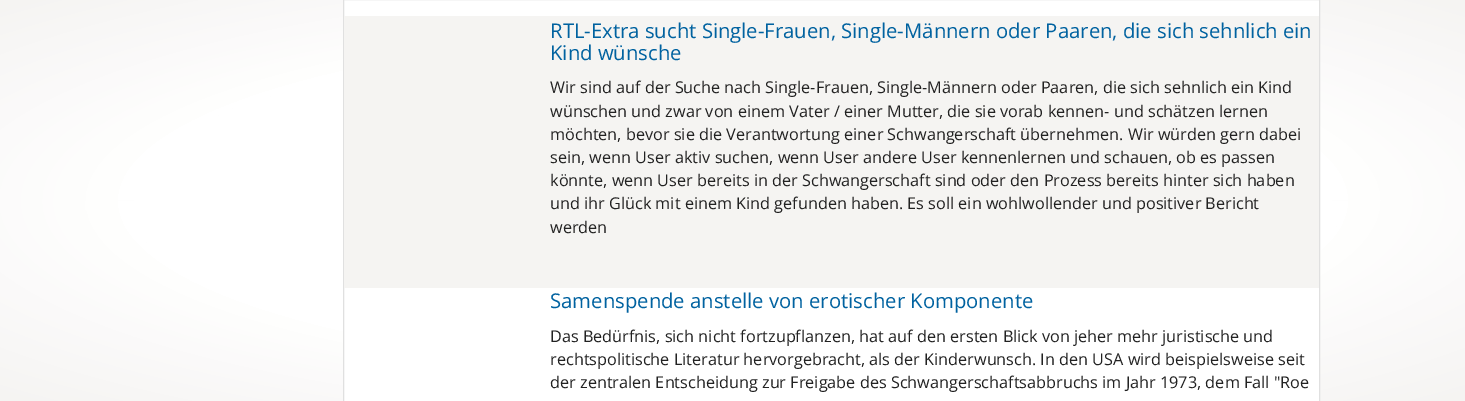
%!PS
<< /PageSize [1465 401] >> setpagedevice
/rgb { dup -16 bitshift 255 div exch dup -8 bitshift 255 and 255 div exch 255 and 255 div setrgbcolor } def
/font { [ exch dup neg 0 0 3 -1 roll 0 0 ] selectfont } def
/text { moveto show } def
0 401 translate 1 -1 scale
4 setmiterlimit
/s1 { /OpenSans-Regular 20.3 font 16#0062A0 rgb } def
/s2 { /OpenSans-Regular 16.25 font 16#222222 rgb } def
16#FFFFFF rgb
0 0 1465 401 rectfill
gsave 0 0 moveto 1465 0 lineto 1465 401 lineto 0 401 lineto closepath clip newpath 733 201 translate 1036 284 scale
<< /ShadingType 3 /ColorSpace /DeviceRGB /Coords [0 0 0 0 0 1] /Extend [true true] /Function << /FunctionType 3 /Domain [0 1] /Functions [<< /FunctionType 2 /Domain [0 1] /C0 [1 1 1] /C1 [1 1 1] /N 1 >> << /FunctionType 2 /Domain [0 1] /C0 [1 1 1] /C1 [0.961 0.957 0.949] /N 1 >>] /Bounds [0.57] /Encode [0 1 0 1] >> >> shfill grestore
343.5 -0.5 moveto 1319.5 -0.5 lineto 1319.5 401.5 lineto 343.5 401.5 lineto closepath gsave fill grestore
16#E0E0E0 rgb
stroke
16#F5F4F2 rgb
344 16 975 272 rectfill
s1
(RTL-Extra sucht Single-Frauen, Single-Männern oder Paaren, die sich sehnlich ein) 550 38 text
(Kind wünsche) 550 60 text
s2
(Wir sind auf der Suche nach Single-Frauen, Single-Männern oder Paaren, die sich sehnlich ein Kind) 550 93 text
(wünschen und zwar von einem Vater / einer Mutter, die sie vorab kennen- und schätzen lernen) 550 117 text
(möchten, bevor sie die Verantwortung einer Schwangerschaft übernehmen. Wir würden gern dabei) 550 140 text
(sein, wenn User aktiv suchen, wenn User andere User kennenlernen und schauen, ob es passen) 550 163 text
(könnte, wenn User bereits in der Schwangerschaft sind oder den Prozess bereits hinter sich haben) 550 186 text
(und ihr Glück mit einem Kind gefunden haben. Es soll ein wohlwollender und positiver Bericht) 550 209 text
(werden) 550 233 text
s1
(Samenspende anstelle von erotischer Komponente) 550 308 text
s2
(Das Bedürfnis, sich nicht fortzupflanzen, hat auf den ersten Blick von jeher mehr juristische und) 550 342 text
(rechtspolitische Literatur hervorgebracht, als der Kinderwunsch. In den USA wird beispielsweise seit) 550 365 text
(der zentralen Entscheidung zur Freigabe des Schwangerschaftsabbruchs im Jahr 1973, dem Fall "Roe) 550 388 text
showpage
